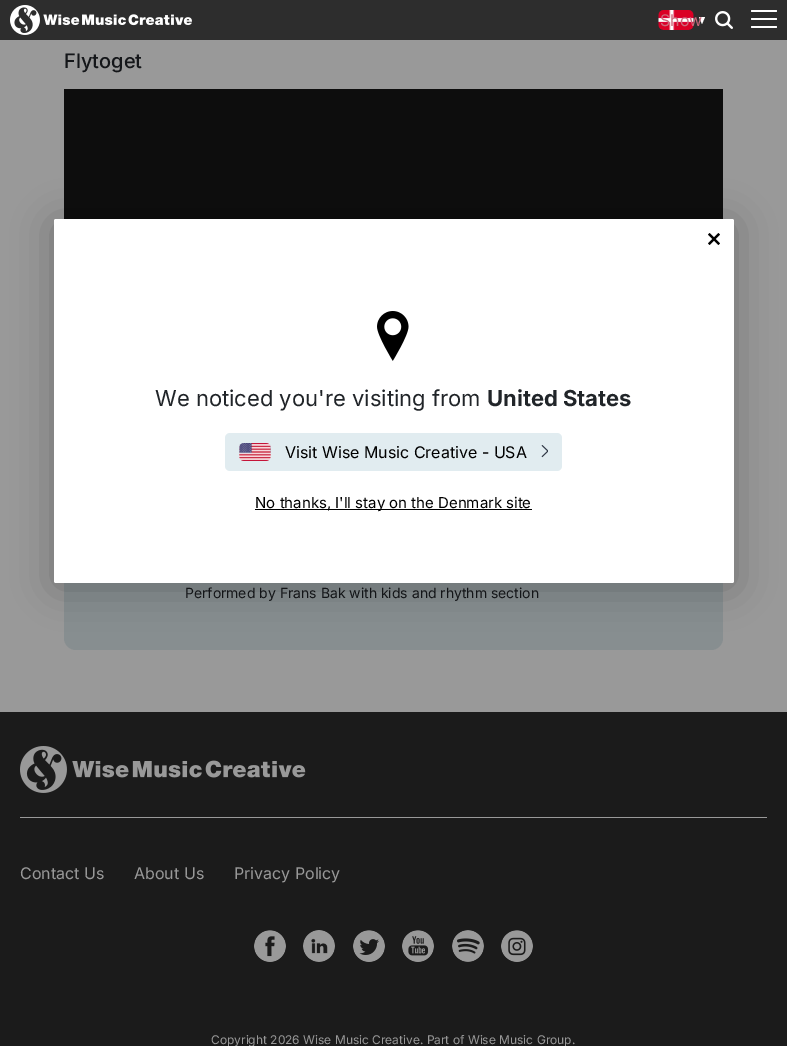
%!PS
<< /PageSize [787 1046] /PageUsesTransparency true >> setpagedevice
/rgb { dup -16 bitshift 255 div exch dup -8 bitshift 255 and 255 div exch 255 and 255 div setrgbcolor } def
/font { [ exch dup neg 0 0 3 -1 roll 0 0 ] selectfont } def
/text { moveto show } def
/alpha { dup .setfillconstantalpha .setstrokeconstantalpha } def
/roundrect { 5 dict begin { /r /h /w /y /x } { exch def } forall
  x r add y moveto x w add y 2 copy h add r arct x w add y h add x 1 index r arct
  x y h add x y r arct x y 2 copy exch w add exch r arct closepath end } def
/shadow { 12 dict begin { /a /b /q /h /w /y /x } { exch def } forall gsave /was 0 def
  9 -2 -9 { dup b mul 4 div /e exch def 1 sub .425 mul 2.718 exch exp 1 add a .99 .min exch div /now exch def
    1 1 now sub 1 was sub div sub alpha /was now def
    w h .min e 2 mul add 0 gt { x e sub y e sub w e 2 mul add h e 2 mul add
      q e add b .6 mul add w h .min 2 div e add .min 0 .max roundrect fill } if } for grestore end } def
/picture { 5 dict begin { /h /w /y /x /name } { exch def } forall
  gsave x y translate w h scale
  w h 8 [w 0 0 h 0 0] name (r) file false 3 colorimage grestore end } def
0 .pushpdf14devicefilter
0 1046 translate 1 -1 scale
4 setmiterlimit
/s1 { /Inter-Regular 16 font 16#CB697C rgb } def
/s2 { /Inter-Medium 20 font 16#141619 rgb } def
/s3 { /Inter-Regular 14 font 16#141619 rgb } def
/s4 { /Inter-Regular 22 font 16#212529 rgb } def
/s5 { /Inter-Bold 22 font 16#212529 rgb } def
/s6 { /Inter-Regular 16 font 16#000000 rgb } def
/s7 { /Inter-Regular 15 font 16#000000 rgb } def
/s8 { /Inter-Regular 16 font 16#999999 rgb } def
/s9 { /Inter-Regular 12 font 16#999999 rgb } def
16#999999 rgb
0 0 787 1046 rectfill
16#2D2D2D rgb
0 0 787 40 rectfill
(pic1.raw) 10 5 182 30 picture
(pic2.raw) 658 10 36 20 picture
16#FFFFFF rgb
699 17 moveto 705 17 lineto 702 24 lineto closepath fill
s1
(Show) 660 26 text
(pic3.raw) 715 11 18 18 picture
16#FFFFFF rgb
751 18 26 2 1 roundrect fill
751 10 26 2 1 roundrect fill
751 26 26 2 1 roundrect fill
s2
(Flytoget) 64 68 text
(pic4.raw) 64 89 659 130 picture
16#878E90 rgb
64 492 659 158 12 roundrect fill
s3
(Performed by Frans Bak with kids and rhythm section) 185 598 text
16#000000 rgb
54 223 680 364 2 20 0.25 shadow
16#FFFFFF rgb
54 219 680 364 2 roundrect fill
(pic5.raw) 708 233 12 12 picture
(pic6.raw) 377 311 32 50 picture
s4
(We noticed you're visiting from) 155 406 text
s5
(United States) 487 406 text
16#E1ECF0 rgb
225 433 337 38 5 roundrect fill
(pic7.raw) 239 443 32 18 picture
s6
(Visit Wise Music Creative - USA) 285 458 text
(pic8.raw) 541 445 7 13 picture
255 509 277 1 rectfill
s7
(No thanks, I'll stay on the Denmark site) 255 508 text
16#1B1B1B rgb
0 712 787 334 rectfill
16#999999 rgb
20 817 747 1 rectfill
(pic9.raw) 20 746 286 47 picture
s8
(Contact Us) 20 879 text
(About Us) 134 879 text
(Privacy Policy) 234 879 text
(pic10.raw) 254 930 32 32 picture
(pic11.raw) 303 930 32 32 picture
(pic12.raw) 353 930 32 32 picture
(pic13.raw) 402 930 32 32 picture
(pic14.raw) 452 930 32 32 picture
(pic15.raw) 501 930 32 32 picture
s9
(Copyright 2026 Wise Music Creative. Part of Wise Music Group.) 211 1044 text
.poppdf14devicefilter showpage
